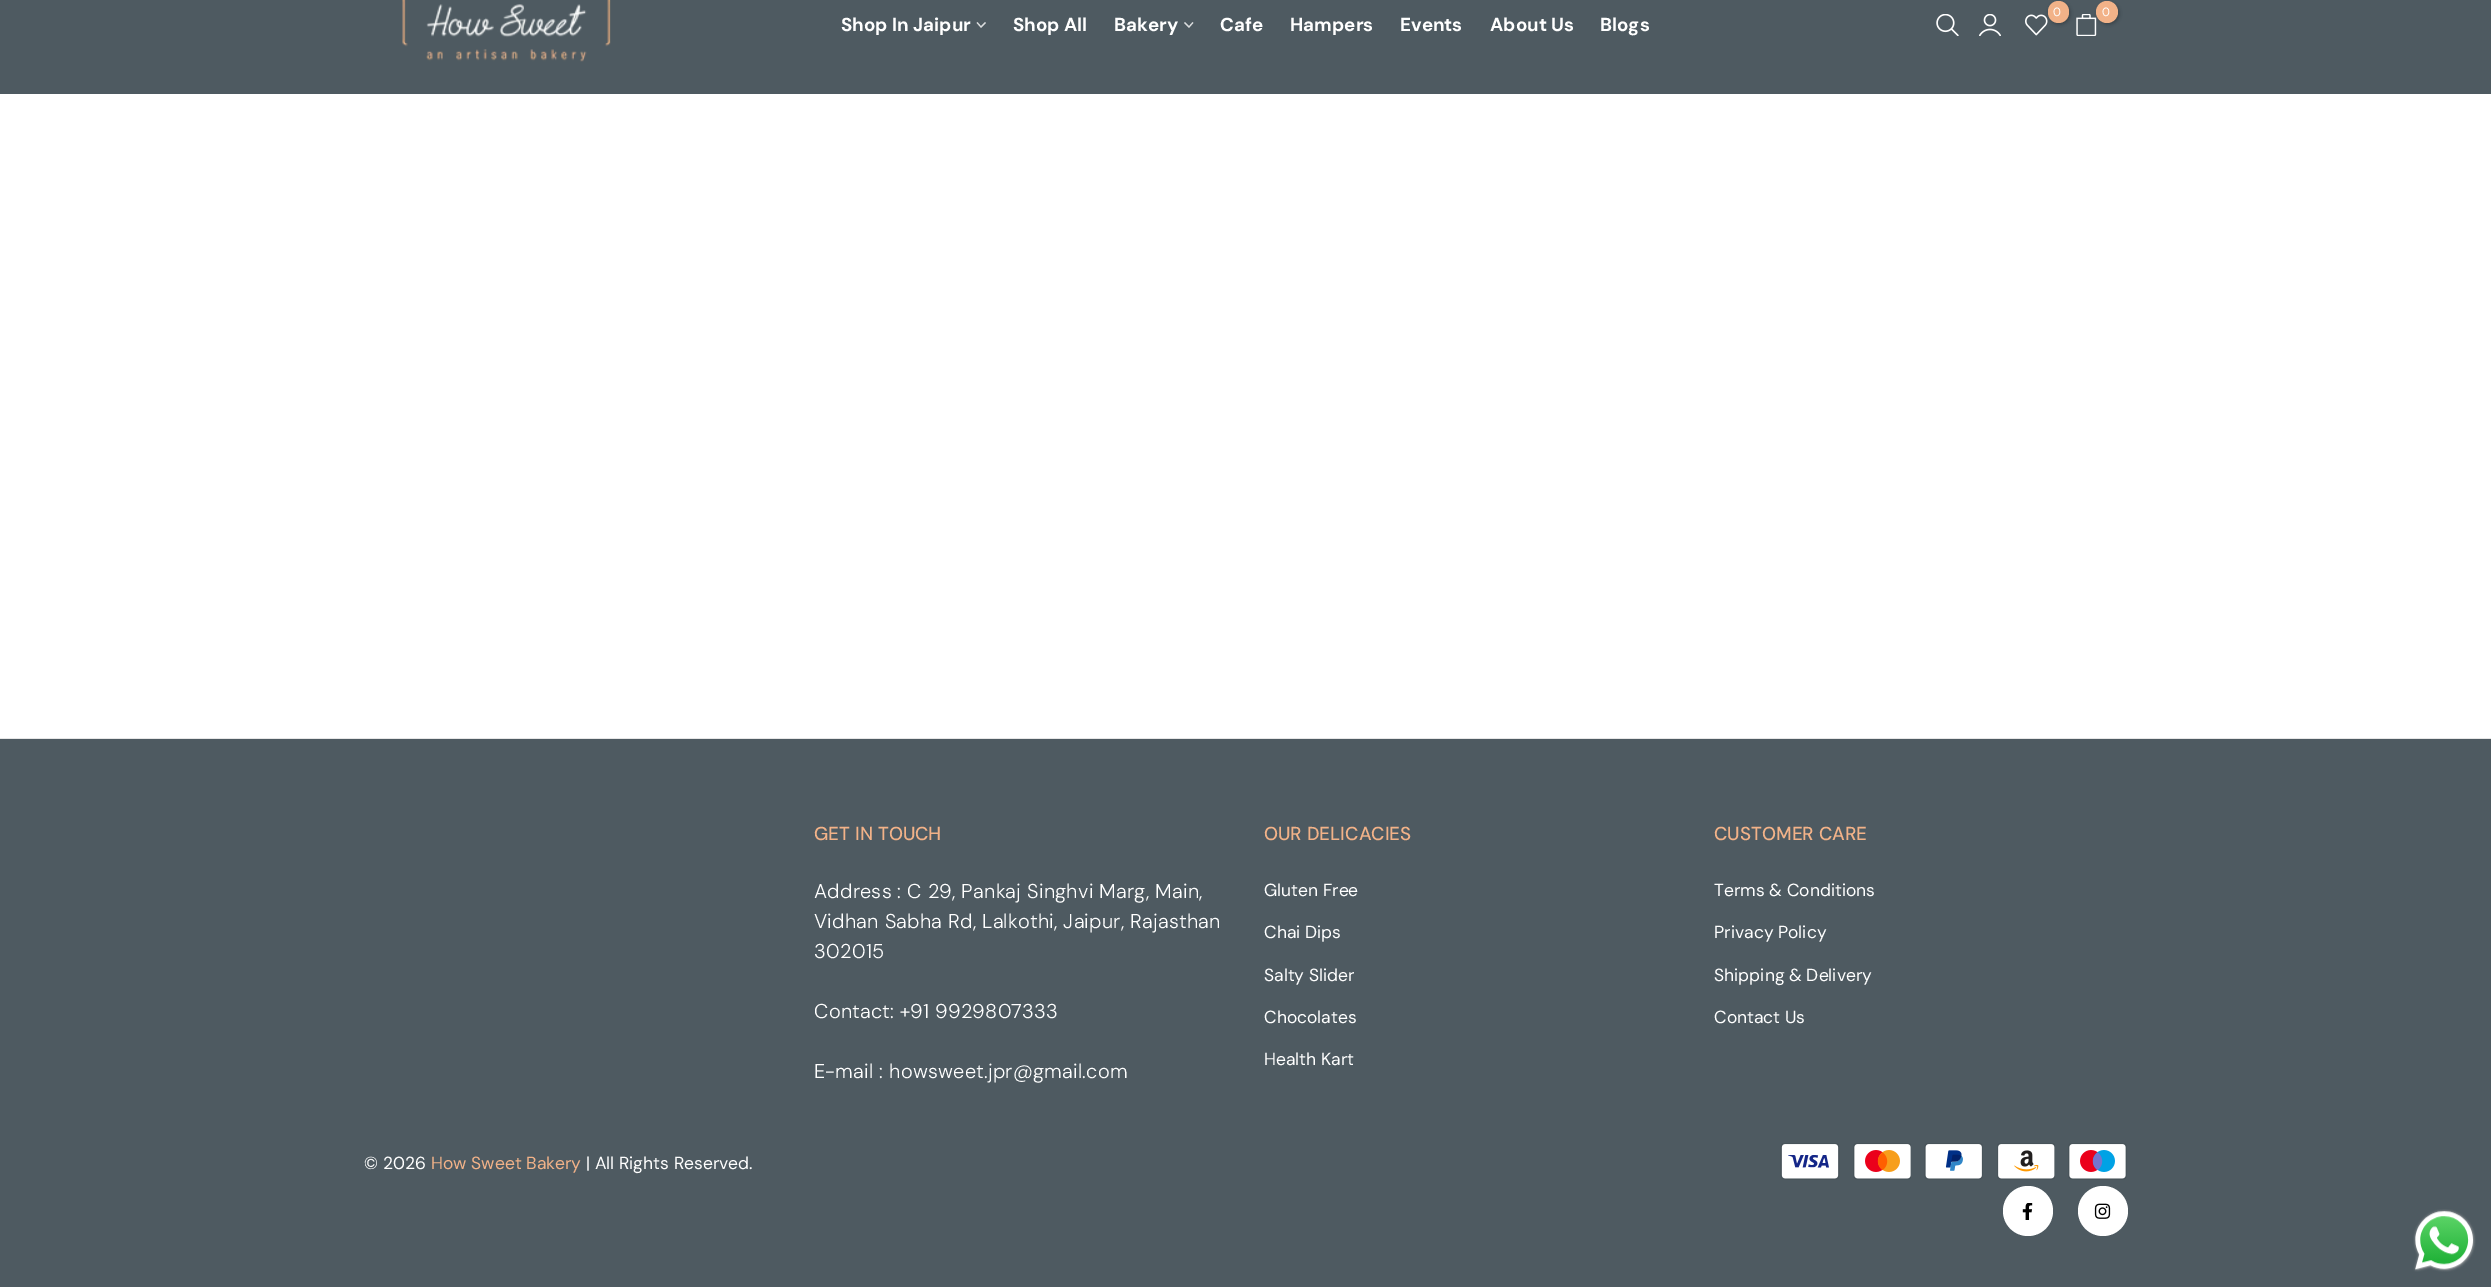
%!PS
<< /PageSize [2491 1287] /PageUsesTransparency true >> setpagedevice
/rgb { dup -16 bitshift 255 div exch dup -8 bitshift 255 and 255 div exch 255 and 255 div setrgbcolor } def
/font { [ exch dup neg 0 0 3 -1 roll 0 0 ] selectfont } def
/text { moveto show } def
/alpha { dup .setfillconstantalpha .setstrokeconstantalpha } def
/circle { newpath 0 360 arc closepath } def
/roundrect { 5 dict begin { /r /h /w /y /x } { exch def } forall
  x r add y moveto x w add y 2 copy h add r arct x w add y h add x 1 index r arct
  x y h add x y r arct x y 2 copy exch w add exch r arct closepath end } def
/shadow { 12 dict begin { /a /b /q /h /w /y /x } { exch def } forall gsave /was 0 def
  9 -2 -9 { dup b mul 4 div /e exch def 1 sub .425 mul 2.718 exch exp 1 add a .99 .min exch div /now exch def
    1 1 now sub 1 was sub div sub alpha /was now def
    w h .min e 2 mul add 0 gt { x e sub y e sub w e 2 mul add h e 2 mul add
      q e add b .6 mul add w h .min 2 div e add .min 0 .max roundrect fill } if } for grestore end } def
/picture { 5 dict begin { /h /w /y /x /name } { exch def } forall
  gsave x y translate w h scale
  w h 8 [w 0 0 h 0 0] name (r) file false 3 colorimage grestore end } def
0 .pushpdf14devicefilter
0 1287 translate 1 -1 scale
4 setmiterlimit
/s1 { /DMSans-Regular 12 font 16#FFFFFF rgb } def
/s2 { /DMSans-Bold 18.75 font 16#FFFFFF rgb } def
/s3 { /DMSans-Medium 18.75 font 16#F2B288 rgb } def
/s4 { /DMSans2-Regular 17.5 font 16#FFFFFF rgb } def
/s5 { /DMSans2-Regular 17.5 font 16#F2B288 rgb } def
16#FFFFFF rgb
0 0 2491 1287 rectfill
16#4E5A61 rgb
0 0 2491 94 rectfill
(pic1.raw) 402 0 209 62 picture
(pic2.raw) 2025 14 23 22 picture
16#000000 rgb
2049 3 21 21 10.5 2 0.3 shadow
16#F2B288 rgb
2048 1 21 22 10.5 roundrect fill
s1
(0) 2053 16 text
(pic3.raw) 2076 14 21 22 picture
16#000000 rgb
2098 3 21 21 10.5 2 0.3 shadow
16#F2B288 rgb
2107 12 11 circle fill
s1
(0) 2102 16 text
(pic4.raw) 1936 14 23 22 picture
(pic5.raw) 1979 14 22 22 picture
s2
(Shop In Jaipur) 841 31 text
16#DCDEDF rgb
1.1 setlinewidth
2 setlinecap
985 23 moveto 981 27 lineto 977.5 23 lineto stroke
s2
(Shop All) 1013 31 text
(Bakery) 1114 31 text
16#DCDEDF rgb
1192.5 23 moveto 1189 27 lineto 1185 23 lineto stroke
s2
(Cafe) 1220 31 text
(Hampers) 1290 31 text
(Events) 1400 31 text
(About Us) 1490 31 text
(Blogs) 1600 31 text
16#4E5A61 rgb
0 739 2491 548 rectfill
16#E6E6E6 rgb
0 738 2491 1 rectfill
s3
(GET IN TOUCH) 814 840 text
/DMSans-Light 20 font
16#FFFFFF rgb
814 898 moveto 0.25 0 (Address : C 29, Pankaj Singhvi Marg, Main,) ashow
814 928 moveto 0.25 0 (Vidhan Sabha Rd, Lalkothi, Jaipur, Rajasthan) ashow
814 958 moveto 0.25 0 (302015) ashow
814 1018 moveto 0.25 0 (Contact: +91 9929807333) ashow
814 1078 moveto 0.25 0 (E-mail : howsweet.jpr@gmail.com) ashow
s3
(OUR DELICACIES) 1264 840 text
s4
(Gluten Free) 1264 896 text
(Chai Dips) 1264 938 text
(Salty Slider) 1264 981 text
(Chocolates) 1264 1023 text
(Health Kart) 1264 1065 text
s3
(CUSTOMER CARE) 1714 840 text
s4
(Terms & Conditions) 1714 896 text
(Privacy Policy) 1714 938 text
(Shipping & Delivery) 1714 981 text
(Contact Us) 1714 1023 text
(© 2026) 364 1169 text
s5
(How Sweet Bakery) 431 1169 text
s4
(| All Rights Reserved.) 586 1169 text
(pic6.raw) 1780 1143 60 37 picture
(pic7.raw) 1853 1143 58 37 picture
(pic8.raw) 1924 1143 59 37 picture
(pic9.raw) 1997 1143 58 37 picture
(pic10.raw) 2068 1143 59 37 picture
2028 1211 25 circle fill
(pic11.raw) 2022 1203 11 17 picture
2103 1211 25 circle fill
(pic12.raw) 2094 1203 17 16 picture
(pic13.raw) 2413 1209 63 63 picture
.poppdf14devicefilter showpage
